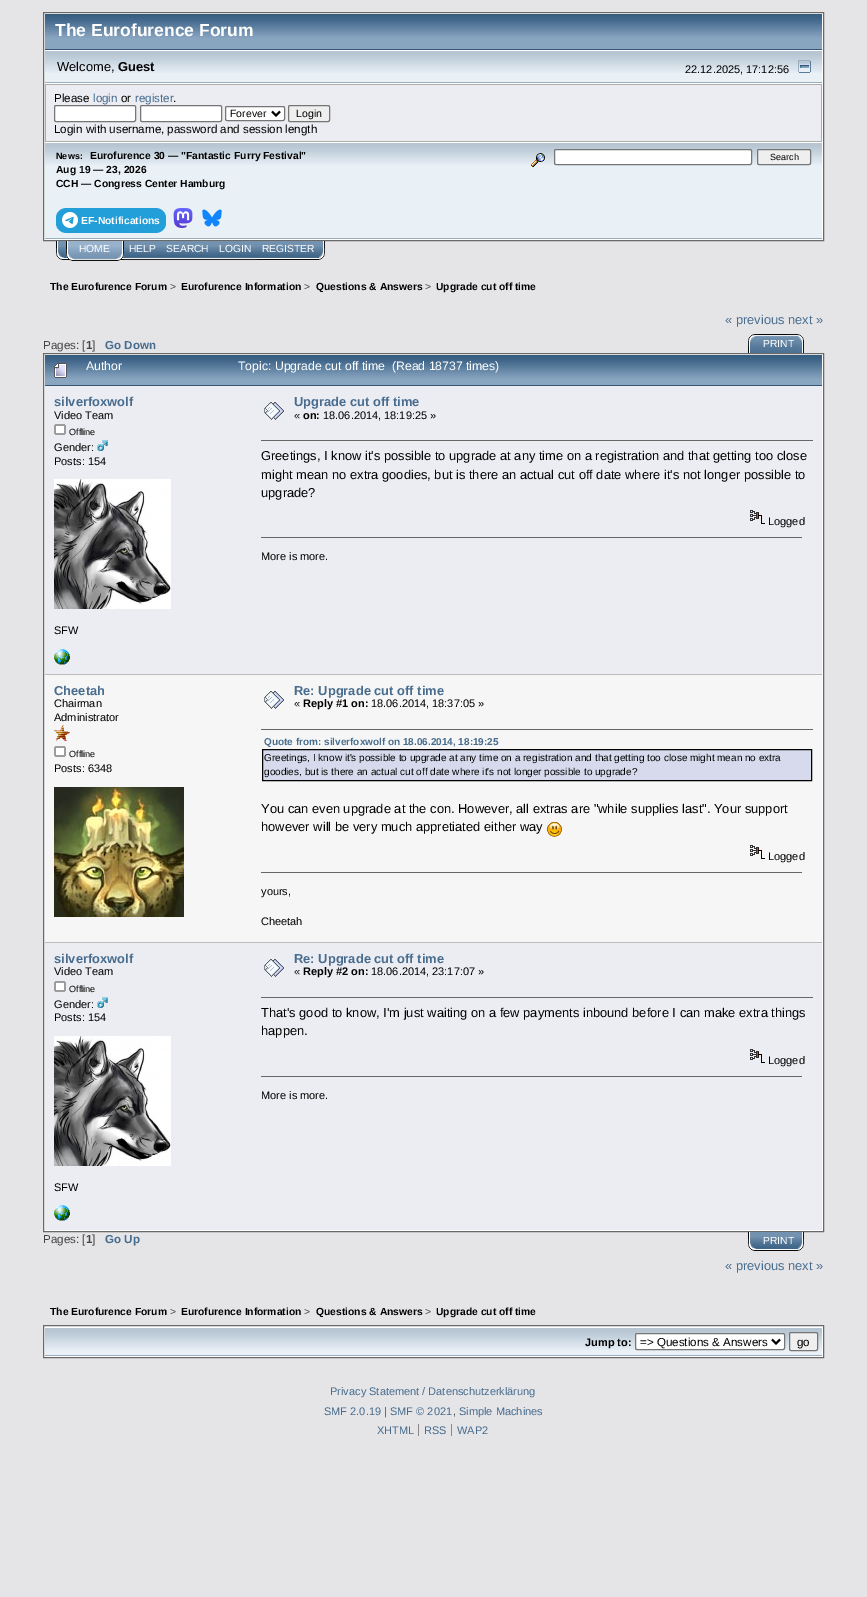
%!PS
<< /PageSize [867 1597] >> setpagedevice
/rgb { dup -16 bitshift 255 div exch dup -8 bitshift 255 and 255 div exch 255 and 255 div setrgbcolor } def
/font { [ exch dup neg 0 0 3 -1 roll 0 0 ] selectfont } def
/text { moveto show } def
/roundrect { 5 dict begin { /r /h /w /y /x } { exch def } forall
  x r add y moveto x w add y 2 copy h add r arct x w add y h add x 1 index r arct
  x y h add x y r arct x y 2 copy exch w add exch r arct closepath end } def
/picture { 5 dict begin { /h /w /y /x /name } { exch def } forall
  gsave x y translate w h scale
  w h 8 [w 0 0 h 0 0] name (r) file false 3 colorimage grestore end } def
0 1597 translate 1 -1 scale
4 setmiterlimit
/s1 { /LiberationSans-Bold 17.5 font 16#FFFFFF rgb } def
/s2 { /LiberationSans-Regular 12.9 font 16#000000 rgb } def
/s3 { /LiberationSans-Bold 12.9 font 16#000000 rgb } def
/s4 { /LiberationSans-Regular 11 font 16#000000 rgb } def
/s5 { /LiberationSans-Regular 11.6 font 16#000000 rgb } def
/s6 { /LiberationSans-Regular 11.6 font 16#476C8E rgb } def
/s7 { /LiberationSans-Regular 10.5 font 16#000000 rgb } def
/s8 { /LiberationSans-Bold 9 font 16#000000 rgb } def
/s9 { /LiberationSans-Bold 10.3 font 16#000000 rgb } def
/s10 { /LiberationSans-Bold 10.3 font 16#FFFFFF rgb } def
/s11 { /LiberationSans-Regular 9 font 16#000000 rgb } def
/s12 { /LiberationSans-Regular 10.3 font 16#FFFFFF rgb } def
/s13 { /LiberationSans-Regular 10.3 font 16#444444 rgb } def
/s14 { /LiberationSans-Regular 12.9 font 16#476C8E rgb } def
/s15 { /LiberationSans-Regular 11.6 font 16#444444 rgb } def
/s16 { /LiberationSans-Bold 11.6 font 16#444444 rgb } def
/s17 { /LiberationSans-Bold 11.6 font 16#476C8E rgb } def
/s18 { /LiberationSans-Regular 12.25 font 16#FFFFFF rgb } def
/s19 { /LiberationSans-Bold 12.9 font 16#476C8E rgb } def
/s20 { /LiberationSans-Bold 11 font 16#000000 rgb } def
/s21 { /LiberationSans-Bold 10 font 16#476C8E rgb } def
/s22 { /LiberationSans-Regular 10 font 16#000000 rgb } def
/s23 { /LiberationSans-Regular 11 font 16#476C8E rgb } def
/s24 { /LiberationSans-Regular 11 font 16#444444 rgb } def
16#E5E5E8 rgb
0 0 867 1597 rectfill
16#FFFFFF rgb
43.5 12.5 moveto 823.5 12.5 lineto 823.5 240.5 lineto 43.5 240.5 lineto closepath gsave fill grestore
16#696969 rgb
stroke
16#88A6C0 rgb
45 38 777 11 rectfill
(pic1.raw) 45 14 777 24 picture
16#375576 rgb
45 49 777 1 rectfill
s1
(The Eurofurence Forum) 55 36 text
16#E9F0F6 rgb
45 73 777 9 rectfill
(pic2.raw) 45 51 777 22 picture
16#9BAEBF rgb
45 82 777 1 rectfill
s2
(Welcome,) 57 71 text
s3
(Guest) 118 71 text
s4
(22.12.2025, 17:12:56) 685 73 text
(pic3.raw) 798 60 13 13 picture
16#ADADAD rgb
45 84 777 58 rectfill
16#ECEDF3 rgb
46 85 775 56 rectfill
s5
(Please) 54 102 text
s6
(login) 93 102 text
s5
(or) 121 102 text
s6
(register) 135 102 text
s5
(.) 173 102 text
16#FFFFFF rgb
54.5 105.5 81 16 1.5 roundrect gsave fill grestore
16#767676 rgb
stroke
16#FFFFFF rgb
140.5 105.5 81 16 1.5 roundrect gsave fill grestore
16#767676 rgb
stroke
16#FFFFFF rgb
225.5 106.5 59 14 1.5 roundrect gsave fill grestore
16#767676 rgb
stroke
16#000000 rgb
2 setlinewidth
272 111.5 moveto 276 115.5 lineto 280 111.5 lineto stroke
s7
(Forever) 230 117 text
16#EFEFEF rgb
288.5 105.5 41 16 1.5 roundrect gsave fill grestore
16#767676 rgb
1 setlinewidth
stroke
s7
(Login) 296 117 text
s5
(Login with username, password and session length) 54 133 text
16#E9F0F6 rgb
45 165 777 73 rectfill
(pic2.raw) 45 143 777 22 picture
16#9BAEBF rgb
45 238 777 1 rectfill
s8
(News:) 56 159 text
s9
(Eurofurence 30 — "Fantastic Furry Festival") 90 159 text
(Aug 19 — 23, 2026) 56 173 text
(CCH — Congress Center Hamburg) 56 187 text
16#229ED9 rgb
67 208 moveto 155 208 lineto 161 208 166 212 166 218 curveto 166 223 lineto 166 229 161 233 155 233 curveto 67 233 lineto 61 233 56 229 56 223 curveto 56 218 lineto 56 212 61 208 67 208 curveto closepath fill
(pic4.raw) 62 212 16 16 picture
s10
(EF-Notifications) 81 224 text
(pic5.raw) 173 208 20 20 picture
(pic6.raw) 202 209 20 18 picture
(pic7.raw) 531 153 14 14 picture
554.5 149.5 197 15 1.5 roundrect gsave fill grestore
16#767676 rgb
stroke
16#EFEFEF rgb
757.5 149.5 53 15 1.5 roundrect gsave fill grestore
16#767676 rgb
stroke
s11
(Search) 770 160 text
(pic8.raw) 56 241 10 19 picture
(pic9.raw) 116 241 8 20 picture
(pic10.raw) 66 241 8 20 picture
(pic11.raw) 74 241 42 20 picture
s12
(HOME) 79 252 text
(pic12.raw) 124 241 37 20 picture
(HELP) 129 252 text
(pic13.raw) 161 241 53 20 picture
(SEARCH) 166 252 text
(pic14.raw) 214 241 43 20 picture
(LOGIN) 219 252 text
(pic15.raw) 257 241 68 19 picture
(REGISTER) 262 252 text
s9
(The Eurofurence Forum) 50 290 text
s13
(>) 170 290 text
s9
(Eurofurence Information) 181 290 text
s13
(>) 304 290 text
s9
(Questions & Answers) 316 290 text
s13
(>) 425 290 text
s9
(Upgrade cut off time) 436 290 text
s14
(« previous next ») 725 324 text
s15
(Pages: [) 43 349 text
s16
(1) 86 349 text
s15
(]) 92 349 text
s17
(Go Down) 105 349 text
(pic16.raw) 748 334 40 19 picture
(pic17.raw) 758 334 46 19 picture
s12
(PRINT) 763 347 text
43.5 353.5 moveto 823.5 353.5 lineto 823.5 1231.5 lineto 43.5 1231.5 lineto closepath gsave fill grestore
16#696969 rgb
stroke
16#88A6C0 rgb
45 379 777 6 rectfill
(pic1.raw) 45 355 777 24 picture
16#375576 rgb
45 385 777 1 rectfill
(pic18.raw) 54 363 13 15 picture
s18
(Author) 86 370 text
(Topic: Upgrade cut off time  \(Read 18737 times\)) 238 370 text
16#ECEDF3 rgb
45 386 777 288 rectfill
s19
(silverfoxwolf) 54 406 text
s4
(Video Team) 54 419 text
(pic19.raw) 54 424 12 11 picture
s11
(Offline) 69 435 text
s4
(Gender:) 54 451 text
(pic20.raw) 97 440 11 11 picture
(Posts: 154) 54 465 text
(pic21.raw) 54 479 117 130 picture
(SFW) 54 634 text
(pic22.raw) 54 649 16 16 picture
(pic23.raw) 264 402 20 18 picture
s19
(Upgrade cut off time) 294 406 text
s4
(«) 294 419 text
s20
(on:) 303 419 text
s4
(18.06.2014, 18:19:25 ») 323 419 text
16#666666 rgb
261 440 552 1 rectfill
s2
(Greetings, I know it's possible to upgrade at any time on a registration and that getting too close) 261 460 text
(might mean no extra goodies, but is there an actual cut off date where it's not longer possible to) 261 479 text
(upgrade?) 261 497 text
(pic24.raw) 750 510 15 14 picture
s4
(Logged) 768 525 text
16#666666 rgb
261 537 541 1 rectfill
s4
(More is more.) 261 560 text
16#F6F6F6 rgb
45 675 777 267 rectfill
16#BBBBBB rgb
45 674 777 1 rectfill
s19
(Cheetah) 54 695 text
s4
(Chairman) 54 707 text
(Administrator) 54 721 text
(pic25.raw) 54 725 16 16 picture
(pic26.raw) 54 746 12 11 picture
s11
(Offline) 69 757 text
s4
(Posts: 6348) 54 772 text
(pic27.raw) 54 787 130 130 picture
(pic28.raw) 264 691 20 18 picture
s19
(Re: Upgrade cut off time) 294 695 text
s4
(«) 294 707 text
s20
(Reply #1 on:) 303 707 text
s4
(18.06.2014, 18:37:05 ») 371 707 text
16#666666 rgb
261 729 552 1 rectfill
s21
(Quote from: silverfoxwolf on 18.06.2014, 18:19:25) 264 745 text
16#D7DAEC rgb
262.5 749.5 moveto 811.5 749.5 lineto 811.5 780.5 lineto 262.5 780.5 lineto closepath gsave fill grestore
16#000000 rgb
stroke
s22
(Greetings, I know it's possible to upgrade at any time on a registration and that getting too close might mean no extra) 264 761 text
(goodies, but is there an actual cut off date where it's not longer possible to upgrade?) 264 775 text
s2
(You can even upgrade at the con. However, all extras are "while supplies last". Your support) 261 813 text
(however will be very much appretiated either way) 261 831 text
(pic29.raw) 547 822 15 15 picture
(pic30.raw) 750 845 15 14 picture
s4
(Logged) 768 860 text
16#666666 rgb
261 872 541 1 rectfill
s4
(yours,) 261 895 text
(Cheetah) 261 925 text
16#ECEDF3 rgb
45 943 777 287 rectfill
16#BBBBBB rgb
45 942 777 1 rectfill
s19
(silverfoxwolf) 54 963 text
s4
(Video Team) 54 975 text
(pic19.raw) 54 981 12 11 picture
s11
(Offline) 69 992 text
s4
(Gender:) 54 1008 text
(pic20.raw) 97 997 11 11 picture
(Posts: 154) 54 1021 text
(pic21.raw) 54 1036 117 130 picture
(SFW) 54 1191 text
(pic22.raw) 54 1205 16 16 picture
(pic23.raw) 264 959 20 18 picture
s19
(Re: Upgrade cut off time) 294 963 text
s4
(«) 294 975 text
s20
(Reply #2 on:) 303 975 text
s4
(18.06.2014, 23:17:07 ») 371 975 text
16#666666 rgb
261 997 552 1 rectfill
s2
(That's good to know, I'm just waiting on a few payments inbound before I can make extra things) 261 1017 text
(happen.) 261 1035 text
(pic24.raw) 750 1049 15 14 picture
s4
(Logged) 768 1064 text
16#666666 rgb
261 1076 541 1 rectfill
s4
(More is more.) 261 1099 text
s15
(Pages: [) 43 1243 text
s16
(1) 86 1243 text
s15
(]) 92 1243 text
s17
(Go Up) 105 1243 text
(pic31.raw) 748 1232 40 19 picture
(pic32.raw) 788 1232 16 19 picture
s12
(PRINT) 763 1244 text
s14
(« previous next ») 725 1270 text
s9
(The Eurofurence Forum) 50 1315 text
s13
(>) 170 1315 text
s9
(Eurofurence Information) 181 1315 text
s13
(>) 304 1315 text
s9
(Questions & Answers) 316 1315 text
s13
(>) 425 1315 text
s9
(Upgrade cut off time) 436 1315 text
16#FFFFFF rgb
43.5 1325.5 moveto 823.5 1325.5 lineto 823.5 1357.5 lineto 43.5 1357.5 lineto closepath gsave fill grestore
16#696969 rgb
stroke
16#E9F0F6 rgb
45 1350 777 5 rectfill
(pic2.raw) 45 1328 777 22 picture
16#9BAEBF rgb
45 1355 777 1 rectfill
s20
(Jump to:) 585 1346 text
16#FFFFFF rgb
635.5 1333.5 149 16 1.5 roundrect gsave fill grestore
16#767676 rgb
stroke
16#000000 rgb
2 setlinewidth
772 1339.5 moveto 776 1343.5 lineto 780 1339.5 lineto stroke
s5
(=> Questions & Answers) 640 1346 text
16#EFEFEF rgb
789.5 1332.5 28 18 1.5 roundrect gsave fill grestore
16#767676 rgb
1 setlinewidth
stroke
s5
(go) 797 1346 text
s23
(Privacy Statement / Datenschutzerklärung) 330 1395 text
(SMF 2.0.19) 324 1415 text
s24
(|) 384 1415 text
s23
(SMF © 2021) 390 1415 text
s24
(,) 453 1415 text
s23
(Simple Machines) 459 1415 text
(XHTML) 377 1434 text
16#888888 rgb
418 1424 1 12 rectfill
s23
(RSS) 424 1434 text
16#888888 rgb
451 1424 1 12 rectfill
s23
(WAP2) 457 1434 text
showpage
